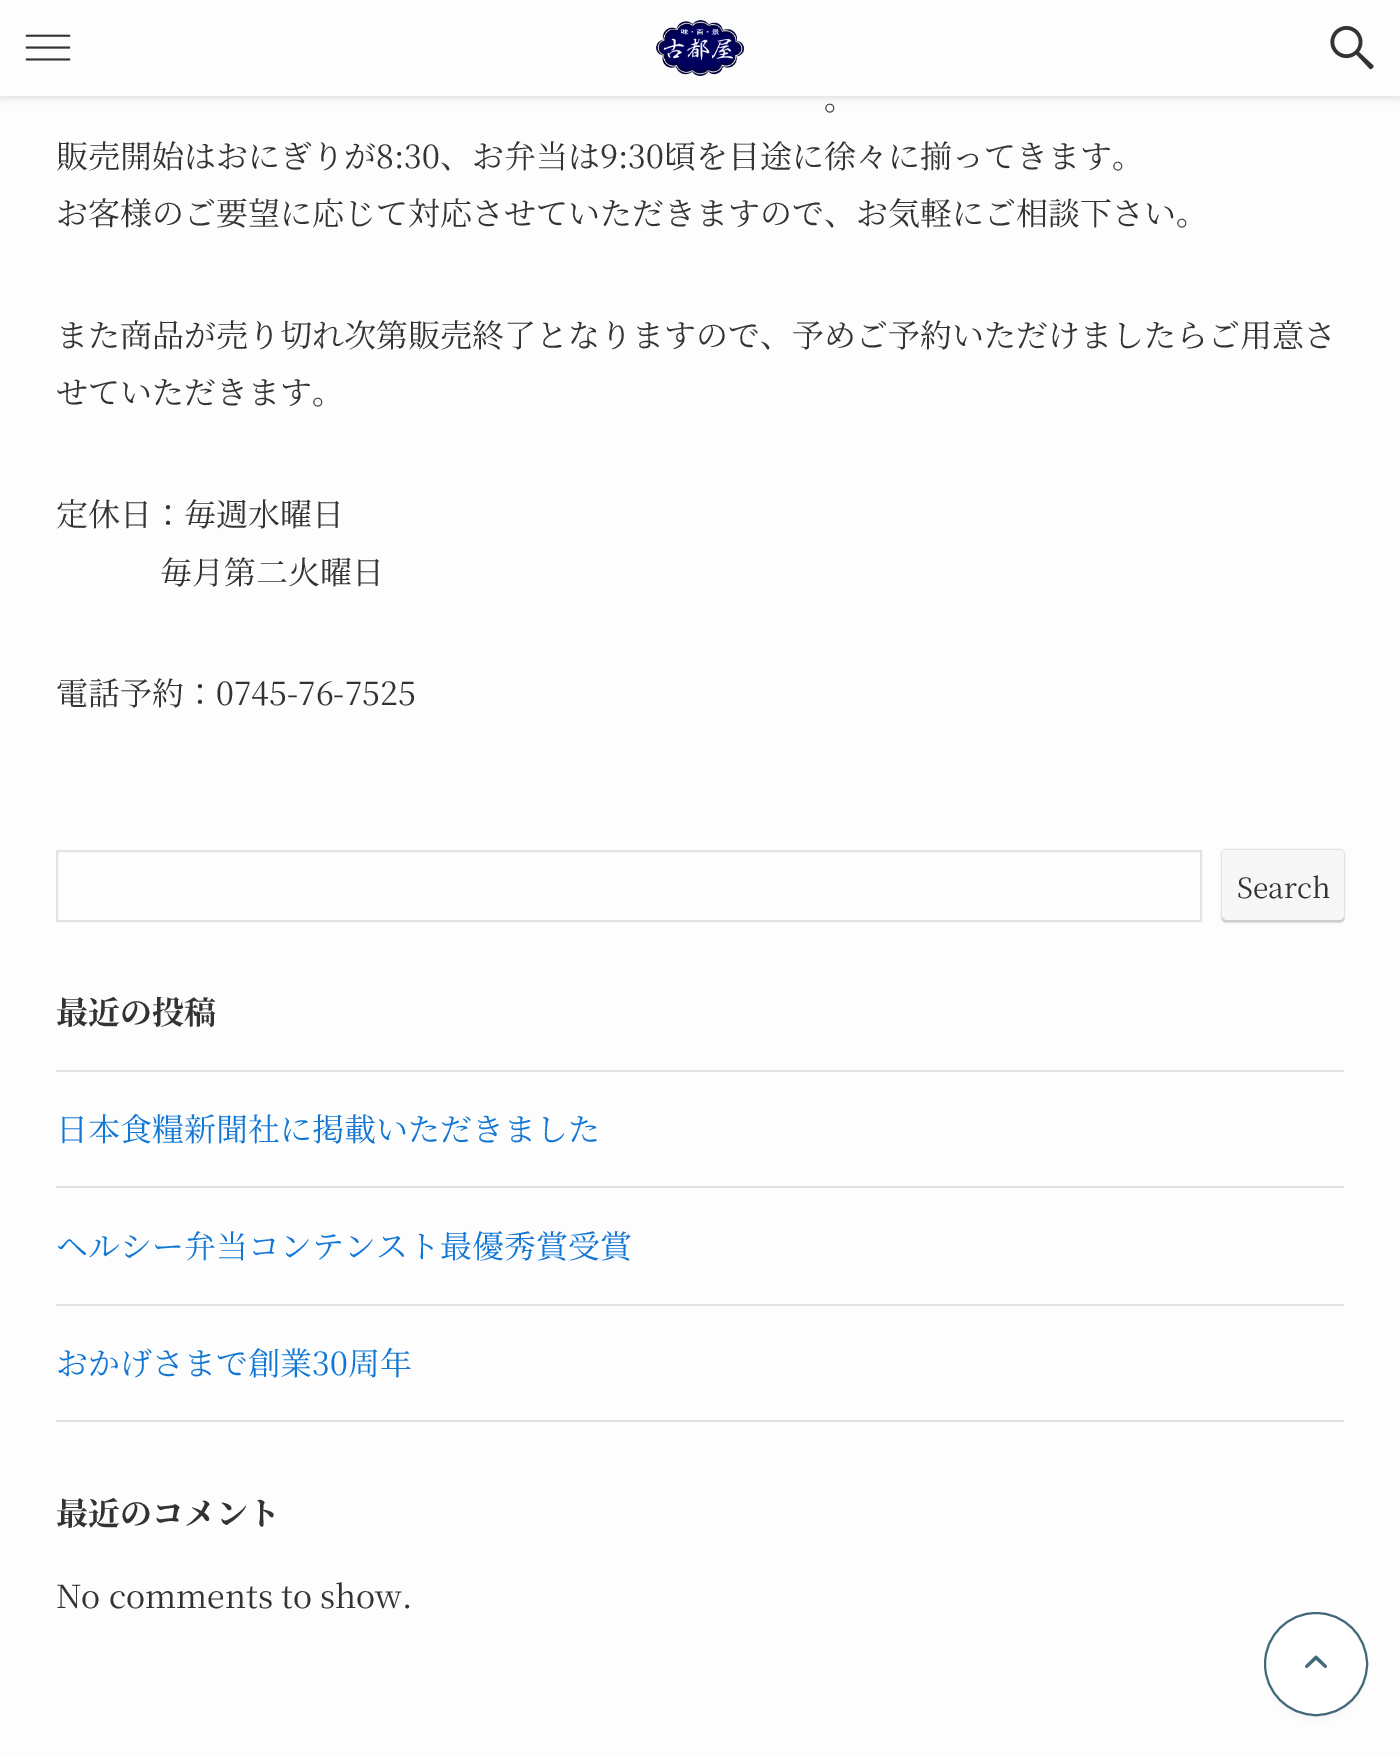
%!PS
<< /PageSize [1400 1755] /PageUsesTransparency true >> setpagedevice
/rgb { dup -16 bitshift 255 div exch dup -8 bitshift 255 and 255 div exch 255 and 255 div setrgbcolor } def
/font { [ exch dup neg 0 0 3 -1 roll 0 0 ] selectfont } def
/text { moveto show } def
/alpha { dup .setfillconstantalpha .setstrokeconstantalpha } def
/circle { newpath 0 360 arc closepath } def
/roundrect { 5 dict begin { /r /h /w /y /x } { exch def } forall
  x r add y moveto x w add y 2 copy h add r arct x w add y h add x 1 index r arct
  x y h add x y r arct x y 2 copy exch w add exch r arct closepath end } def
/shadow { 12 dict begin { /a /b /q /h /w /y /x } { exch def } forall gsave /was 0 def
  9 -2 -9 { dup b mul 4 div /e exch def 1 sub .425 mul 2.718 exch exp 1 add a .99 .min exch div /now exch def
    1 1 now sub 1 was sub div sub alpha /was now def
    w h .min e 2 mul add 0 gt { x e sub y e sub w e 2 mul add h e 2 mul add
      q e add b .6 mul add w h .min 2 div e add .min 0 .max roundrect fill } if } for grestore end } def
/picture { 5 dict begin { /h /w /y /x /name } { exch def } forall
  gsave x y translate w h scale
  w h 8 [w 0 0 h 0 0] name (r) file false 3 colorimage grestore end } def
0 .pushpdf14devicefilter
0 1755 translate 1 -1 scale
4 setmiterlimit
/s1 { /NotoSerifJP-Regular 32 font 16#333333 rgb } def
/s2 { /NotoSerifJP-Regular 28 font 16#333333 rgb } def
/s3 { /NotoSerifJP-Bold 32 font 16#333333 rgb } def
/s4 { /NotoSerifJP-Regular 32 font 16#1176D4 rgb } def
16#FDFDFD rgb
0 0 1400 1755 rectfill
16#000000 rgb
0 2 1400 96 0 4 0.12 shadow
16#FDFDFD rgb
0 0 1400 96 rectfill
(pic1.raw) 25 34 46 27 picture
(pic2.raw) 656 20 88 56 picture
(pic3.raw) 1330 25 44 45 picture
s1
(。) 824 110 text
(販売開始はおにぎりが8:30、お弁当は9:30頃を目途に徐々に揃ってきます。) 56 168 text
(お客様のご要望に応じて対応させていただきますので、お気軽にご相談下さい。) 56 225 text
(また商品が売り切れ次第販売終了となりますので、予めご予約いただけましたらご用意さ) 56 347 text
(せていただきます。) 56 404 text
(定休日：毎週水曜日) 56 526 text
(毎月第二火曜日) 160 584 text
(電話予約：0745-76-7525) 56 705 text
16#E2E2E2 rgb
2 setlinewidth
57 851 1144 70 rectstroke
16#AAAAAA rgb
1222 850 122 72 4 1 1 shadow
16#F7F7F7 rgb
1222 850 122 72 4 roundrect fill
16#CCCCCC rgb
1222 916 moveto 1222 918 lineto 1222 920 1224 922 1226 922 curveto 1340 922 lineto 1342 922 1344 920 1344 918 curveto 1344 916 lineto 1344 918 1342 920 1340 920 curveto 1226 920 lineto 1224 920 1222 918 1222 916 curveto closepath fill
s2
(Search) 1237 898 text
s3
(最近の投稿) 56 1024 text
16#E2E2E2 rgb
56 1070 1288 2 rectfill
56 1186 1288 2 rectfill
s4
(日本食糧新聞社に掲載いただきました) 56 1141 text
16#E2E2E2 rgb
56 1304 1288 2 rectfill
s4
(ヘルシー弁当コンテンスト最優秀賞受賞) 56 1258 text
16#E2E2E2 rgb
56 1420 1288 2 rectfill
s4
(おかげさまで創業30周年) 56 1375 text
s3
(最近のコメント) 56 1525 text
s1
(No comments to show.) 56 1608 text
16#3F3F3F rgb
1272 1628 88 88 44 4 0.1 shadow
16#FFFFFF rgb
1316 1664 51 circle gsave fill grestore
16#426978 rgb
stroke
(pic4.raw) 1305 1655 22 13 picture
.poppdf14devicefilter showpage
